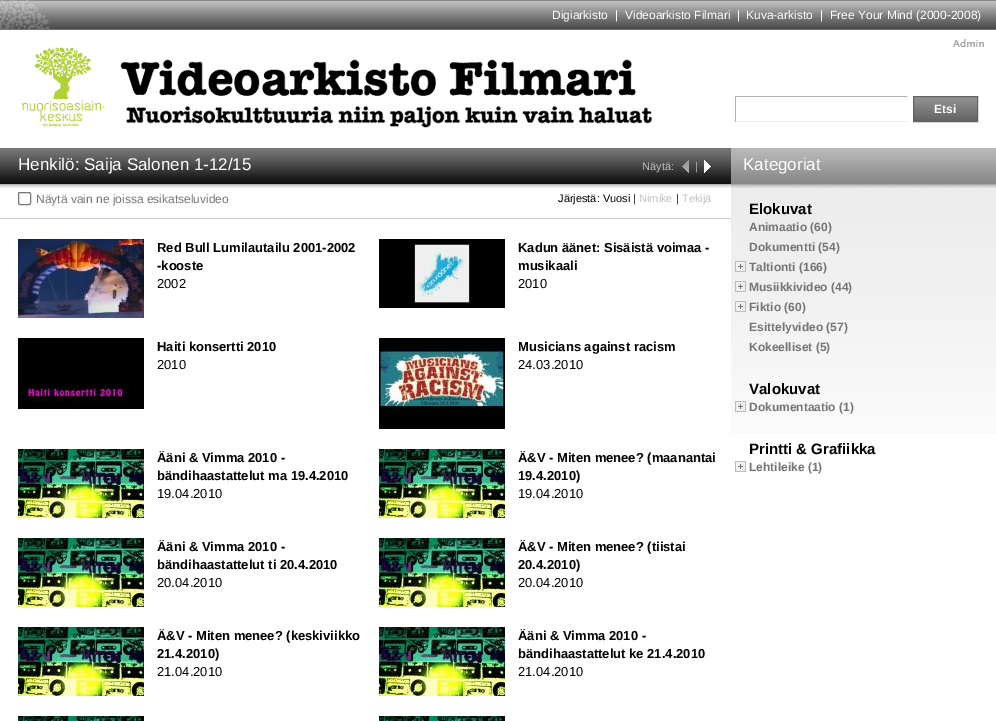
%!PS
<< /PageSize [996 721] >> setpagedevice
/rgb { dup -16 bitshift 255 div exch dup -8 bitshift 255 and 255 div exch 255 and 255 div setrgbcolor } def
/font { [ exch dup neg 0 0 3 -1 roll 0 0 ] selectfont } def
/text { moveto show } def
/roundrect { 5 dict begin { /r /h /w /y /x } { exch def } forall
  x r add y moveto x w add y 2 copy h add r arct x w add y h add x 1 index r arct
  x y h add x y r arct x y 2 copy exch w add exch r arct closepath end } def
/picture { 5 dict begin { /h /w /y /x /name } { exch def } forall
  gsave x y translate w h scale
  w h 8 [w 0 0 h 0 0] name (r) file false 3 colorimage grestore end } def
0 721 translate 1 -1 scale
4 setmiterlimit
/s1 { /LiberationSans-Regular 12 font 16#FFFFFF rgb } def
/s2 { /LiberationSans-Bold 12 font 16#FFFFFF rgb } def
/s3 { /LiberationSans-Regular 17 font 16#FFFFFF rgb } def
/s4 { /LiberationSans-Regular 11 font 16#C0C0C0 rgb } def
/s5 { /LiberationSans-Regular 12 font 16#757575 rgb } def
/s6 { /LiberationSans-Regular 11 font 16#000000 rgb } def
/s7 { /LiberationSans-Bold 13 font 16#000000 rgb } def
/s8 { /LiberationSans-Regular 13 font 16#000000 rgb } def
/s9 { /LiberationSans-Bold 15 font 16#000000 rgb } def
/s10 { /LiberationSans-Bold 12 font 16#757575 rgb } def
16#FFFFFF rgb
0 0 996 721 rectfill
(pic1.raw) 0 0 101 30 picture
(pic2.raw) 0 0 50 29 picture
(pic3.raw) 101 0 895 30 picture
s1
(Digiarkisto) 552 19 text
(|) 615 19 text
(Videoarkisto Filmari) 625 19 text
(|) 737 19 text
(Kuva-arkisto) 746 19 text
(|) 820 19 text
(Free Your Mind \(2000-2008\)) 830 19 text
(pic4.raw) 21 39 963 89 picture
907 99 1 22 rectfill
gsave 914 97 moveto 977 97 lineto 977 121 lineto 914 121 lineto closepath clip newpath
<< /ShadingType 2 /ColorSpace /DeviceRGB /Coords [914 97 914 121] /Extend [true true] /Function << /FunctionType 2 /Domain [0 1] /C0 [0.58 0.58 0.58] /C1 [0.388 0.388 0.388] /N 1 >> >> shfill grestore
16#636363 rgb
913.5 96.5 64 25 rectstroke
s2
(Etsi) 934 113 text
(pic5.raw) 0 148 996 40 picture
s3
(Henkilö: Saija Salonen 1-12/15) 18 170 text
s4
(Näytä:) 642 170 text
(pic6.raw) 682 160 7 13 picture
(|) 695 170 text
(pic7.raw) 704 160 7 13 picture
s3
(Kategoriat) 743 170 text
16#CCCCCC rgb
0 218 731 1 rectfill
16#767676 rgb
18.5 192.5 12 12 1.5 roundrect stroke
s5
(Näytä vain ne joissa esikatseluvideo) 36 203 text
s6
(Järjestä: Vuosi |) 558 202 text
s4
(Nimike) 639 202 text
s6
(|) 676 202 text
s4
(Tekijä) 682 202 text
(pic8.raw) 18 239 126 79 picture
s7
(Red Bull Lumilautailu 2001-2002) 157 252 text
(-kooste) 157 270 text
s8
(2002) 157 288 text
(pic9.raw) 379 239 126 69 picture
s7
(Kadun äänet: Sisäistä voimaa -) 518 252 text
(musikaali) 518 270 text
s8
(2010) 518 288 text
(pic10.raw) 18 338 126 71 picture
s7
(Haiti konsertti 2010) 157 351 text
s8
(2010) 157 369 text
(pic11.raw) 379 338 126 91 picture
s7
(Musicians against racism) 518 351 text
s8
(24.03.2010) 518 369 text
(pic12.raw) 18 449 126 69 picture
s7
(Ääni & Vimma 2010 -) 157 462 text
(bändihaastattelut ma 19.4.2010) 157 480 text
s8
(19.04.2010) 157 498 text
(pic12.raw) 379 449 126 69 picture
s7
(Ä&V - Miten menee? \(maanantai) 518 462 text
(19.4.2010\)) 518 480 text
s8
(19.04.2010) 518 498 text
(pic12.raw) 18 538 126 69 picture
s7
(Ääni & Vimma 2010 -) 157 551 text
(bändihaastattelut ti 20.4.2010) 157 569 text
s8
(20.04.2010) 157 587 text
(pic12.raw) 379 538 126 69 picture
s7
(Ä&V - Miten menee? \(tiistai) 518 551 text
(20.4.2010\)) 518 569 text
s8
(20.04.2010) 518 587 text
(pic12.raw) 18 627 126 69 picture
s7
(Ä&V - Miten menee? \(keskiviikko) 157 640 text
(21.4.2010\)) 157 658 text
s8
(21.04.2010) 157 676 text
(pic12.raw) 379 627 126 69 picture
s7
(Ääni & Vimma 2010 -) 518 640 text
(bändihaastattelut ke 21.4.2010) 518 658 text
s8
(21.04.2010) 518 676 text
(pic13.raw) 18 716 126 5 picture
(pic13.raw) 379 716 126 5 picture
(pic14.raw) 731 188 265 245 picture
s9
(Elokuvat) 749 214 text
s10
(Animaatio \(60\)) 749 231 text
(Dokumentti \(54\)) 749 251 text
(pic15.raw) 735 261 11 11 picture
(Taltionti \(166\)) 749 271 text
(pic15.raw) 735 281 11 11 picture
(Musiikkivideo \(44\)) 749 291 text
(pic15.raw) 735 301 11 11 picture
(Fiktio \(60\)) 749 311 text
(Esittelyvideo \(57\)) 749 331 text
(Kokeelliset \(5\)) 749 351 text
s9
(Valokuvat) 749 394 text
(pic15.raw) 735 401 11 11 picture
s10
(Dokumentaatio \(1\)) 749 411 text
s9
(Printti & Grafiikka) 749 454 text
(pic15.raw) 735 461 11 11 picture
s10
(Lehtileike \(1\)) 749 471 text
showpage
